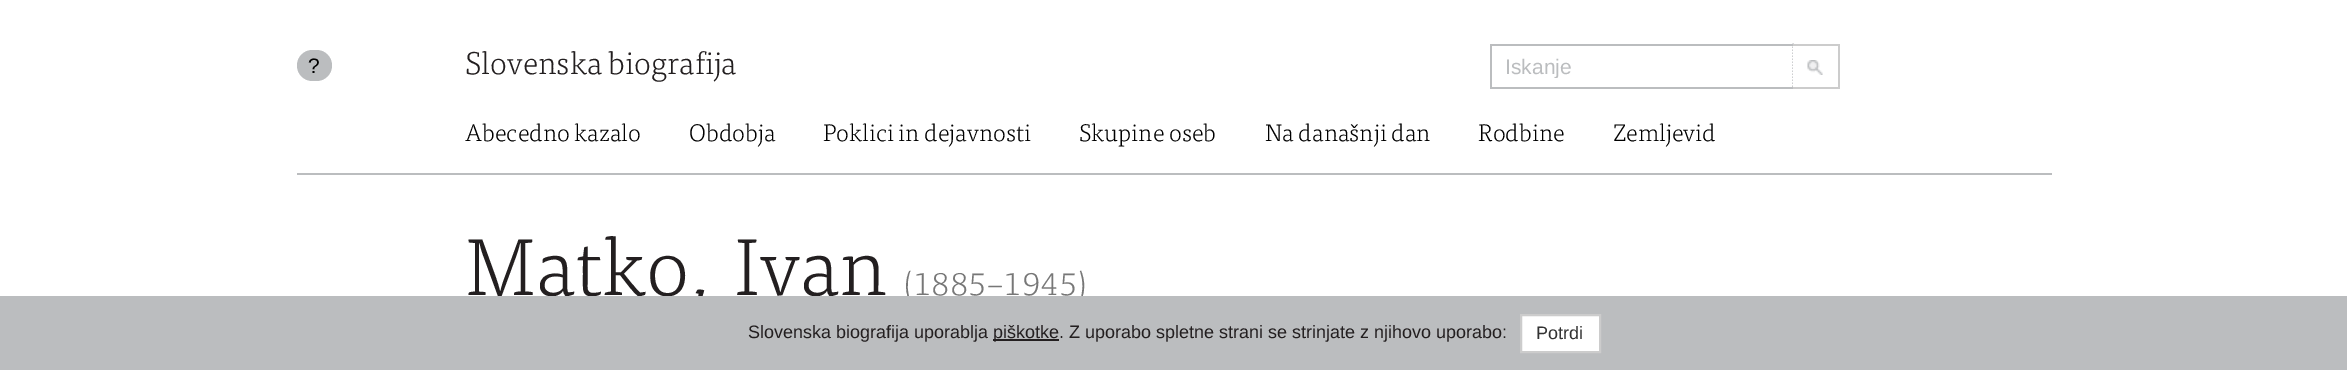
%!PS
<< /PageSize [2347 370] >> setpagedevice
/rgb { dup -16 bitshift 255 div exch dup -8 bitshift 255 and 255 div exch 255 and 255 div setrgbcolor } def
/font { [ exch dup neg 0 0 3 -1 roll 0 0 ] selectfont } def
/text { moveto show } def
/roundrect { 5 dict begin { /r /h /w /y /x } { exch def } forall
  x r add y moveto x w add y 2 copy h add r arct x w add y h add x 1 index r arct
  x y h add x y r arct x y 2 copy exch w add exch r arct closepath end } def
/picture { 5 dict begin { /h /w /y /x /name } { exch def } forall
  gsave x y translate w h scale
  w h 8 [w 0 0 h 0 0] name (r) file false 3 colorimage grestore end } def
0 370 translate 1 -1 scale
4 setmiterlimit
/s1 { /LiberationSans-Regular 21 font 16#000000 rgb } def
/s2 { /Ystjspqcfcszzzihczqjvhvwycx-Light 31.5 font 16#231F20 rgb } def
/s3 { /LiberationSans-Regular 21 font 16#BBBDBF rgb } def
/s4 { /Ystjspqcfcszzzihczqjvhvwycx-Light 24 font 16#000000 rgb } def
/s5 { /Ystjspqcfcszzzihczqjvhvwycx-Light 81 font 16#231F20 rgb } def
/s6 { /Ystjspqcfcszzzihczqjvhvwycx-Light 32.5 font 16#777777 rgb } def
/s7 { /LiberationSans-Regular 18 font 16#231F20 rgb } def
/s8 { /LiberationSans-Regular 18 font 16#333333 rgb } def
16#FFFFFF rgb
0 0 2347 370 rectfill
16#BBBDBF rgb
297 173 1755 2 rectfill
297 50 35 31 15.5 roundrect fill
s1
(?) 308 73 text
s2
(Slovenska biografija) 465 74 text
16#BBBDBF rgb
1490 44 304 2 rectfill
1.5 setlinewidth
[1.5 1.5] 0 setdash
1793 43.5 moveto 1793 88.5 lineto stroke
1490 87 304 2 rectfill
1490 44 2 45 rectfill
gsave
1506 54 272 24 rectclip
s3
(Iskanje) 1505 74 text
grestore
16#FFFFFF rgb
1793 46 1 41 rectfill
16#CCCCCC rgb
1793 44 46 2 rectfill
1838 44 2 45 rectfill
1793 87 46 2 rectfill
(pic1.raw) 1807 60 16 15 picture
s4
(Abecedno kazalo) 465 141 text
(Obdobja) 689 141 text
(Poklici in dejavnosti) 823 141 text
(Skupine oseb) 1079 141 text
(Na današnji dan) 1265 141 text
(Rodbine) 1478 141 text
(Zemljevid) 1613 141 text
s5
(Matko, Ivan) 465 295 text
s6
(\(1885–1945\)) 903 295 text
16#BBBDBF rgb
0 296 2347 74 rectfill
s7
(Slovenska biografija uporablja) 748 338 text
993 339 66 2 rectfill
(piškotke. Z uporabo spletne strani se strinjate z njihovo uporabo:) 993 338 text
16#FFFFFF rgb
1521 315 moveto 1600 315 lineto 1600 352 lineto 1521 352 lineto closepath gsave fill grestore
16#CCCCCC rgb
2 setlinewidth
[] 0 setdash
stroke
s8
(Potrdi) 1536 339 text
showpage
